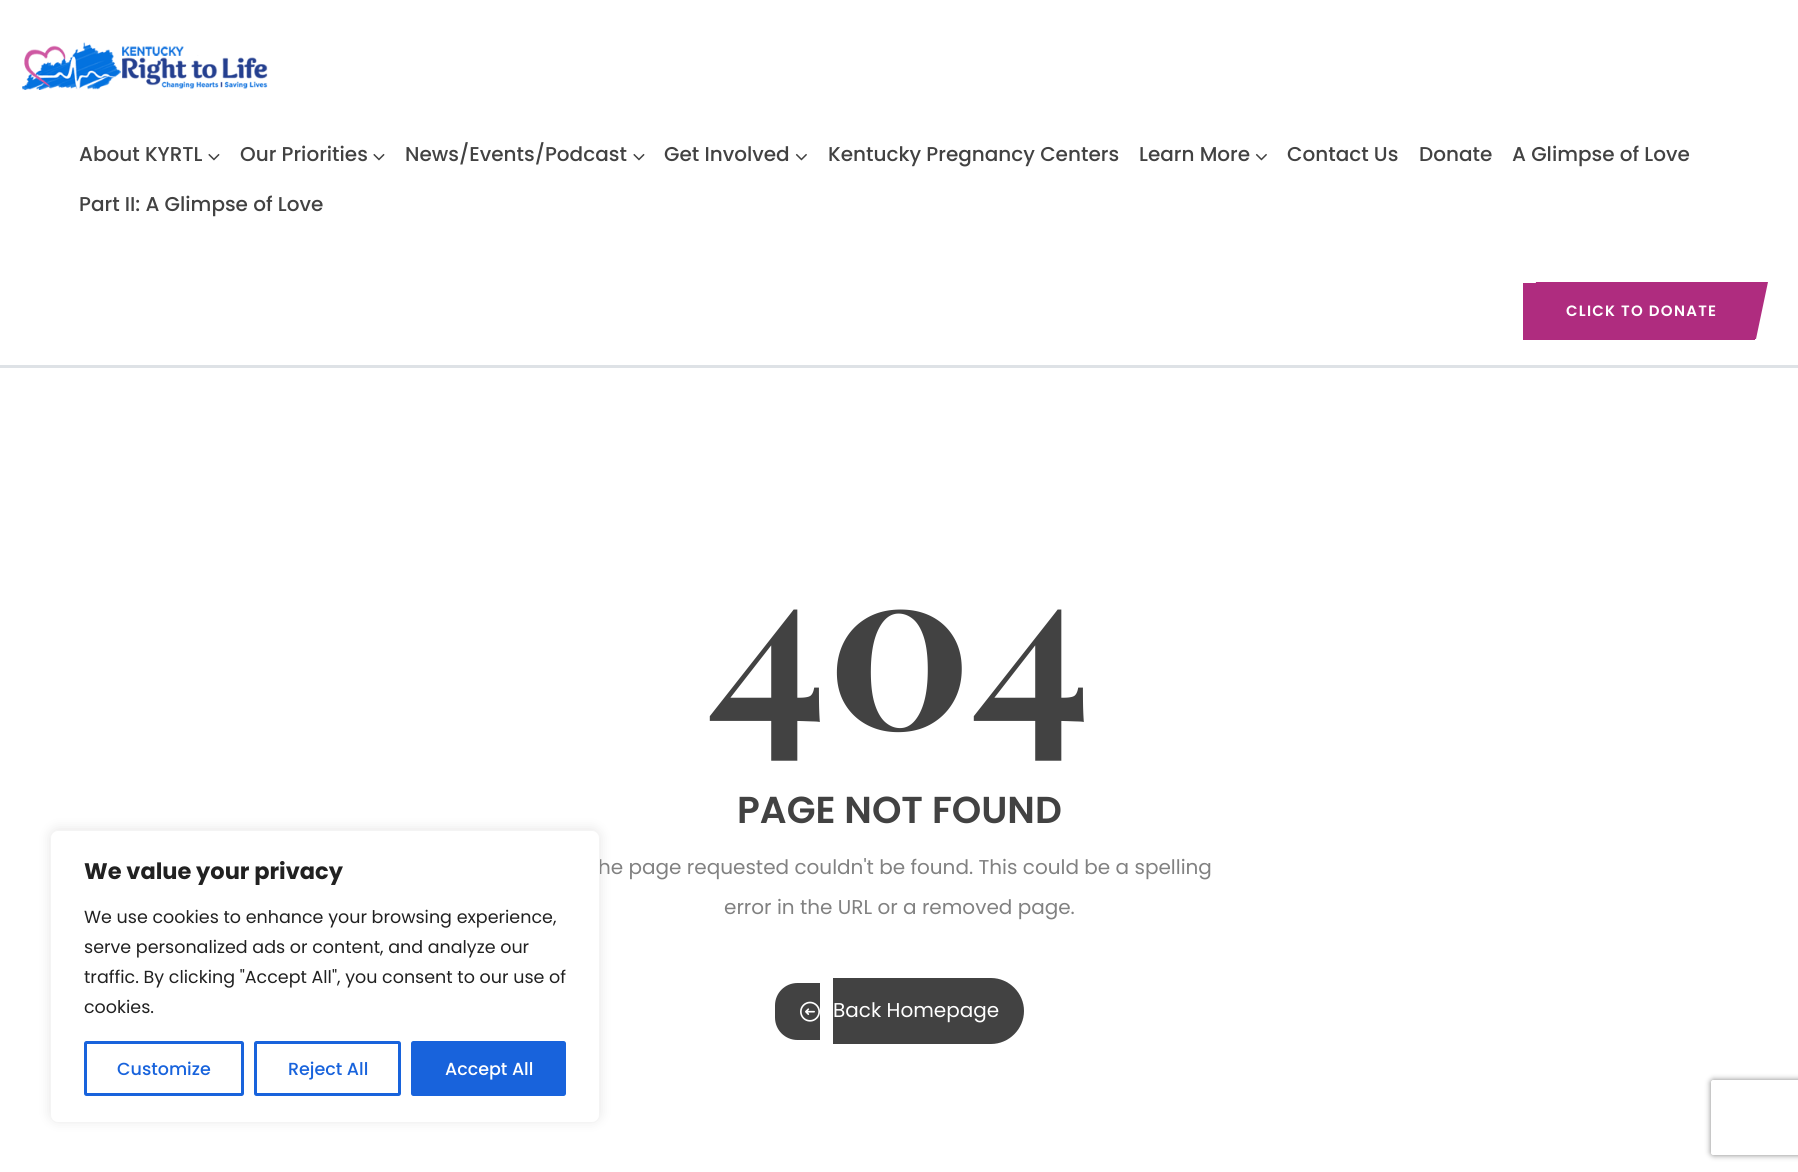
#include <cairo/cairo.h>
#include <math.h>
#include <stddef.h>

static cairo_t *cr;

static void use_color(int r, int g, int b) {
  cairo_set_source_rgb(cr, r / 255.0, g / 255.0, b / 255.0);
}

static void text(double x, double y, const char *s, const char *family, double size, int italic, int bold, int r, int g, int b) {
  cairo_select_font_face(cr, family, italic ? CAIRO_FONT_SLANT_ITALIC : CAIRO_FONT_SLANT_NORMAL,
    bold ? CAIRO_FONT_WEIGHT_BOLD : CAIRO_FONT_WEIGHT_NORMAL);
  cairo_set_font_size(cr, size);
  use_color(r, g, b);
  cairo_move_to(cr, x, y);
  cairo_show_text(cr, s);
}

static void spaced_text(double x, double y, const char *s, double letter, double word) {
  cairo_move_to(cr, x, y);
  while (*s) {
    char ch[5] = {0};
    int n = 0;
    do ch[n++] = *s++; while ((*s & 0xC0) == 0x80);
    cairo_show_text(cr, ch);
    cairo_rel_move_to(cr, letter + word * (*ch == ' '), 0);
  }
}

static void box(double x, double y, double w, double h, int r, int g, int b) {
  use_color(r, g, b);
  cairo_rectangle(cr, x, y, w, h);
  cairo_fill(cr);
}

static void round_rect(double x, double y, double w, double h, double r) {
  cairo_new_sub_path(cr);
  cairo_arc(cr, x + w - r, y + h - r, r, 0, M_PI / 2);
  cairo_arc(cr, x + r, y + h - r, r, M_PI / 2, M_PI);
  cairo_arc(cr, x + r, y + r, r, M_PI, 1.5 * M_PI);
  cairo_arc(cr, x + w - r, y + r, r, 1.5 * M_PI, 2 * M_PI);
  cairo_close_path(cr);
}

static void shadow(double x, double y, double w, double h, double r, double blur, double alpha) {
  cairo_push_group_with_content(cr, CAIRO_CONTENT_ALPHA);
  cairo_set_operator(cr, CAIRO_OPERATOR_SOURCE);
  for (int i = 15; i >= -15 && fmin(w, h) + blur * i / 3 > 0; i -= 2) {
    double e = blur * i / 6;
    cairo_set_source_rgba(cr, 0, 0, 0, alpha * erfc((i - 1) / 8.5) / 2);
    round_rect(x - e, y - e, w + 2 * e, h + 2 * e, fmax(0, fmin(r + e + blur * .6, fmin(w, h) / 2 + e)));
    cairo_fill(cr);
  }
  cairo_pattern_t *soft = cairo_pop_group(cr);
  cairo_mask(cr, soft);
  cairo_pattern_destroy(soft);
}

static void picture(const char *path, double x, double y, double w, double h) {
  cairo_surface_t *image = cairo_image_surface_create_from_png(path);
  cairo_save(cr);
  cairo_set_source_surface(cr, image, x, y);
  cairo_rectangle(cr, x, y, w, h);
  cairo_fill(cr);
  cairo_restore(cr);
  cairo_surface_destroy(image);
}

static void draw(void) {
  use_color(255, 255, 255);
  cairo_paint(cr);
  box(0, 365, 1798, 3, 222, 226, 230);
  picture("img_01.png", 22, 42, 246, 48);
  picture("img_02.png", 208, 153, 12, 8);
  picture("img_02.png", 373, 153, 12, 8);
  picture("img_02.png", 633, 153, 12, 8);
  picture("img_03.png", 795, 153, 12, 8);
  picture("img_03.png", 1255, 153, 12, 8);
  box(1523, 283, 232, 57, 175, 44, 127);
  cairo_new_path(cr);
  cairo_move_to(cr, 1536, 282);
  cairo_line_to(cr, 1768, 282);
  cairo_line_to(cr, 1756, 339);
  cairo_line_to(cr, 1524, 339);
  cairo_close_path(cr);
  cairo_fill(cr);
  use_color(66, 66, 66);
  cairo_new_path(cr);
  cairo_move_to(cr, 797.5, 983);
  cairo_line_to(cr, 820, 983);
  cairo_line_to(cr, 820, 1040);
  cairo_line_to(cr, 797.5, 1040);
  cairo_curve_to(cr, 785, 1040, 775, 1030, 775, 1017.5);
  cairo_line_to(cr, 775, 1005.5);
  cairo_curve_to(cr, 775, 993, 785, 983, 797.5, 983);
  cairo_close_path(cr);
  cairo_fill(cr);
  picture("img_04.png", 800, 1001, 20, 21);
  cairo_new_path(cr);
  cairo_move_to(cr, 833, 978);
  cairo_line_to(cr, 991, 978);
  cairo_curve_to(cr, 1009, 978, 1024, 993, 1024, 1011);
  cairo_curve_to(cr, 1024, 1029, 1009, 1044, 991, 1044);
  cairo_line_to(cr, 833, 1044);
  cairo_close_path(cr);
  cairo_fill(cr);
  use_color(172, 171, 171);
  shadow(50, 829, 550, 292, 8, 6, 0.3);
  cairo_save(cr);
  cairo_set_fill_rule(cr, CAIRO_FILL_RULE_EVEN_ODD);
  cairo_new_path(cr);
  cairo_move_to(cr, 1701, 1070);
  cairo_line_to(cr, 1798, 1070);
  cairo_line_to(cr, 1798, 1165);
  cairo_line_to(cr, 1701, 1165);
  cairo_close_path(cr);
  cairo_move_to(cr, 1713.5, 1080);
  cairo_line_to(cr, 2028.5, 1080);
  cairo_curve_to(cr, 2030, 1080, 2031, 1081, 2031, 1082.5);
  cairo_line_to(cr, 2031, 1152.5);
  cairo_curve_to(cr, 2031, 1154, 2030, 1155, 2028.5, 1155);
  cairo_line_to(cr, 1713.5, 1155);
  cairo_curve_to(cr, 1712, 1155, 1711, 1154, 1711, 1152.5);
  cairo_line_to(cr, 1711, 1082.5);
  cairo_curve_to(cr, 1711, 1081, 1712, 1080, 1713.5, 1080);
  cairo_close_path(cr);
  cairo_clip(cr);
  use_color(128, 128, 128);
  shadow(1711, 1080, 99, 75, 2.5, 3, 1);
  cairo_restore(cr);
  text(79, 161, "About KYRTL", "Poppins Medium", 20, 0, 0, 66, 66, 66);
  text(240, 161, "Our Priorities", "Poppins Medium", 20, 0, 0, 66, 66, 66);
  text(405, 161, "News/Events/Podcast", "Poppins Medium", 20, 0, 0, 66, 66, 66);
  text(664, 161, "Get Involved", "Poppins Medium", 20, 0, 0, 66, 66, 66);
  text(828, 161, "Kentucky Pregnancy Centers", "Poppins Medium", 20, 0, 0, 66, 66, 66);
  text(1139, 161, "Learn More", "Poppins Medium", 20, 0, 0, 66, 66, 66);
  text(1287, 161, "Contact Us", "Poppins Medium", 20, 0, 0, 66, 66, 66);
  text(1419, 161, "Donate", "Poppins Medium", 20, 0, 0, 66, 66, 66);
  text(1512, 161, "A Glimpse of Love", "Poppins Medium", 20, 0, 0, 66, 66, 66);
  text(79, 211, "Part II: A Glimpse of Love", "Poppins Medium", 20, 0, 0, 66, 66, 66);
  cairo_select_font_face(cr, "Poppins SemiBold", CAIRO_FONT_SLANT_NORMAL, CAIRO_FONT_WEIGHT_NORMAL);
  cairo_set_font_size(cr, 15);
  use_color(255, 255, 255);
  spaced_text(1566, 316, "CLICK TO DONATE", 1.25, 0);
  text(708, 729, "404", "Playfair Display", 225, 0, 1, 66, 66, 66);
  text(737, 823, "PAGE NOT FOUND", "Poppins SemiBold", 37.5, 0, 0, 66, 66, 66);
  text(598, 874, "he page requested couldn't be found. This could be a spelling", "Poppins", 20, 0, 0, 129, 129, 129);
  text(724, 914, "error in the URL or a removed page.", "Poppins", 20, 0, 0, 129, 129, 129);
  text(833, 1017, "Back Homepage", "Poppins", 20, 0, 0, 255, 255, 255);
  round_rect(50.5, 830.5, 549, 292, 7.5);
  cairo_fill_preserve(cr);
  use_color(244, 244, 244);
  cairo_set_line_width(cr, 1);
  cairo_stroke(cr);
  text(84, 879, "We value your privacy", "Poppins", 22.5, 0, 1, 33, 33, 33);
  text(84, 923, "We use cookies to enhance your browsing experience,", "Poppins", 17.5, 0, 0, 33, 33, 33);
  text(84, 953, "serve personalized ads or content, and analyze our", "Poppins", 17.5, 0, 0, 33, 33, 33);
  text(84, 983, "traffic. By clicking \"Accept All\", you consent to our use of", "Poppins", 17.5, 0, 0, 33, 33, 33);
  text(84, 1013, "cookies.", "Poppins", 17.5, 0, 0, 33, 33, 33);
  round_rect(85.5, 1042.5, 157, 52, 1);
  use_color(24, 99, 220);
  cairo_set_line_width(cr, 3);
  cairo_stroke(cr);
  text(117, 1075, "Customize", "Poppins Medium", 17.5, 0, 0, 24, 99, 220);
  round_rect(255.5, 1042.5, 144, 52, 1);
  cairo_stroke(cr);
  text(288, 1075, "Reject All", "Poppins Medium", 17.5, 0, 0, 24, 99, 220);
  round_rect(412.5, 1042.5, 152, 52, 1);
  cairo_fill_preserve(cr);
  cairo_stroke(cr);
  text(445, 1075, "Accept All", "Poppins Medium", 17.5, 0, 0, 255, 255, 255);
}

int main(void) {
  cairo_surface_t *surface = cairo_image_surface_create(CAIRO_FORMAT_RGB24, 1798, 1172);
  cr = cairo_create(surface);
  cairo_font_options_t *options = cairo_font_options_create();
  cairo_font_options_set_hint_metrics(options, CAIRO_HINT_METRICS_OFF);
  cairo_font_options_set_hint_style(options, CAIRO_HINT_STYLE_NONE);
  cairo_set_font_options(cr, options);
  cairo_set_miter_limit(cr, 4);
  draw();
  cairo_surface_write_to_png(surface, "out.png");
  cairo_font_options_destroy(options);
  cairo_destroy(cr);
  cairo_surface_destroy(surface);
  return 0;
}
